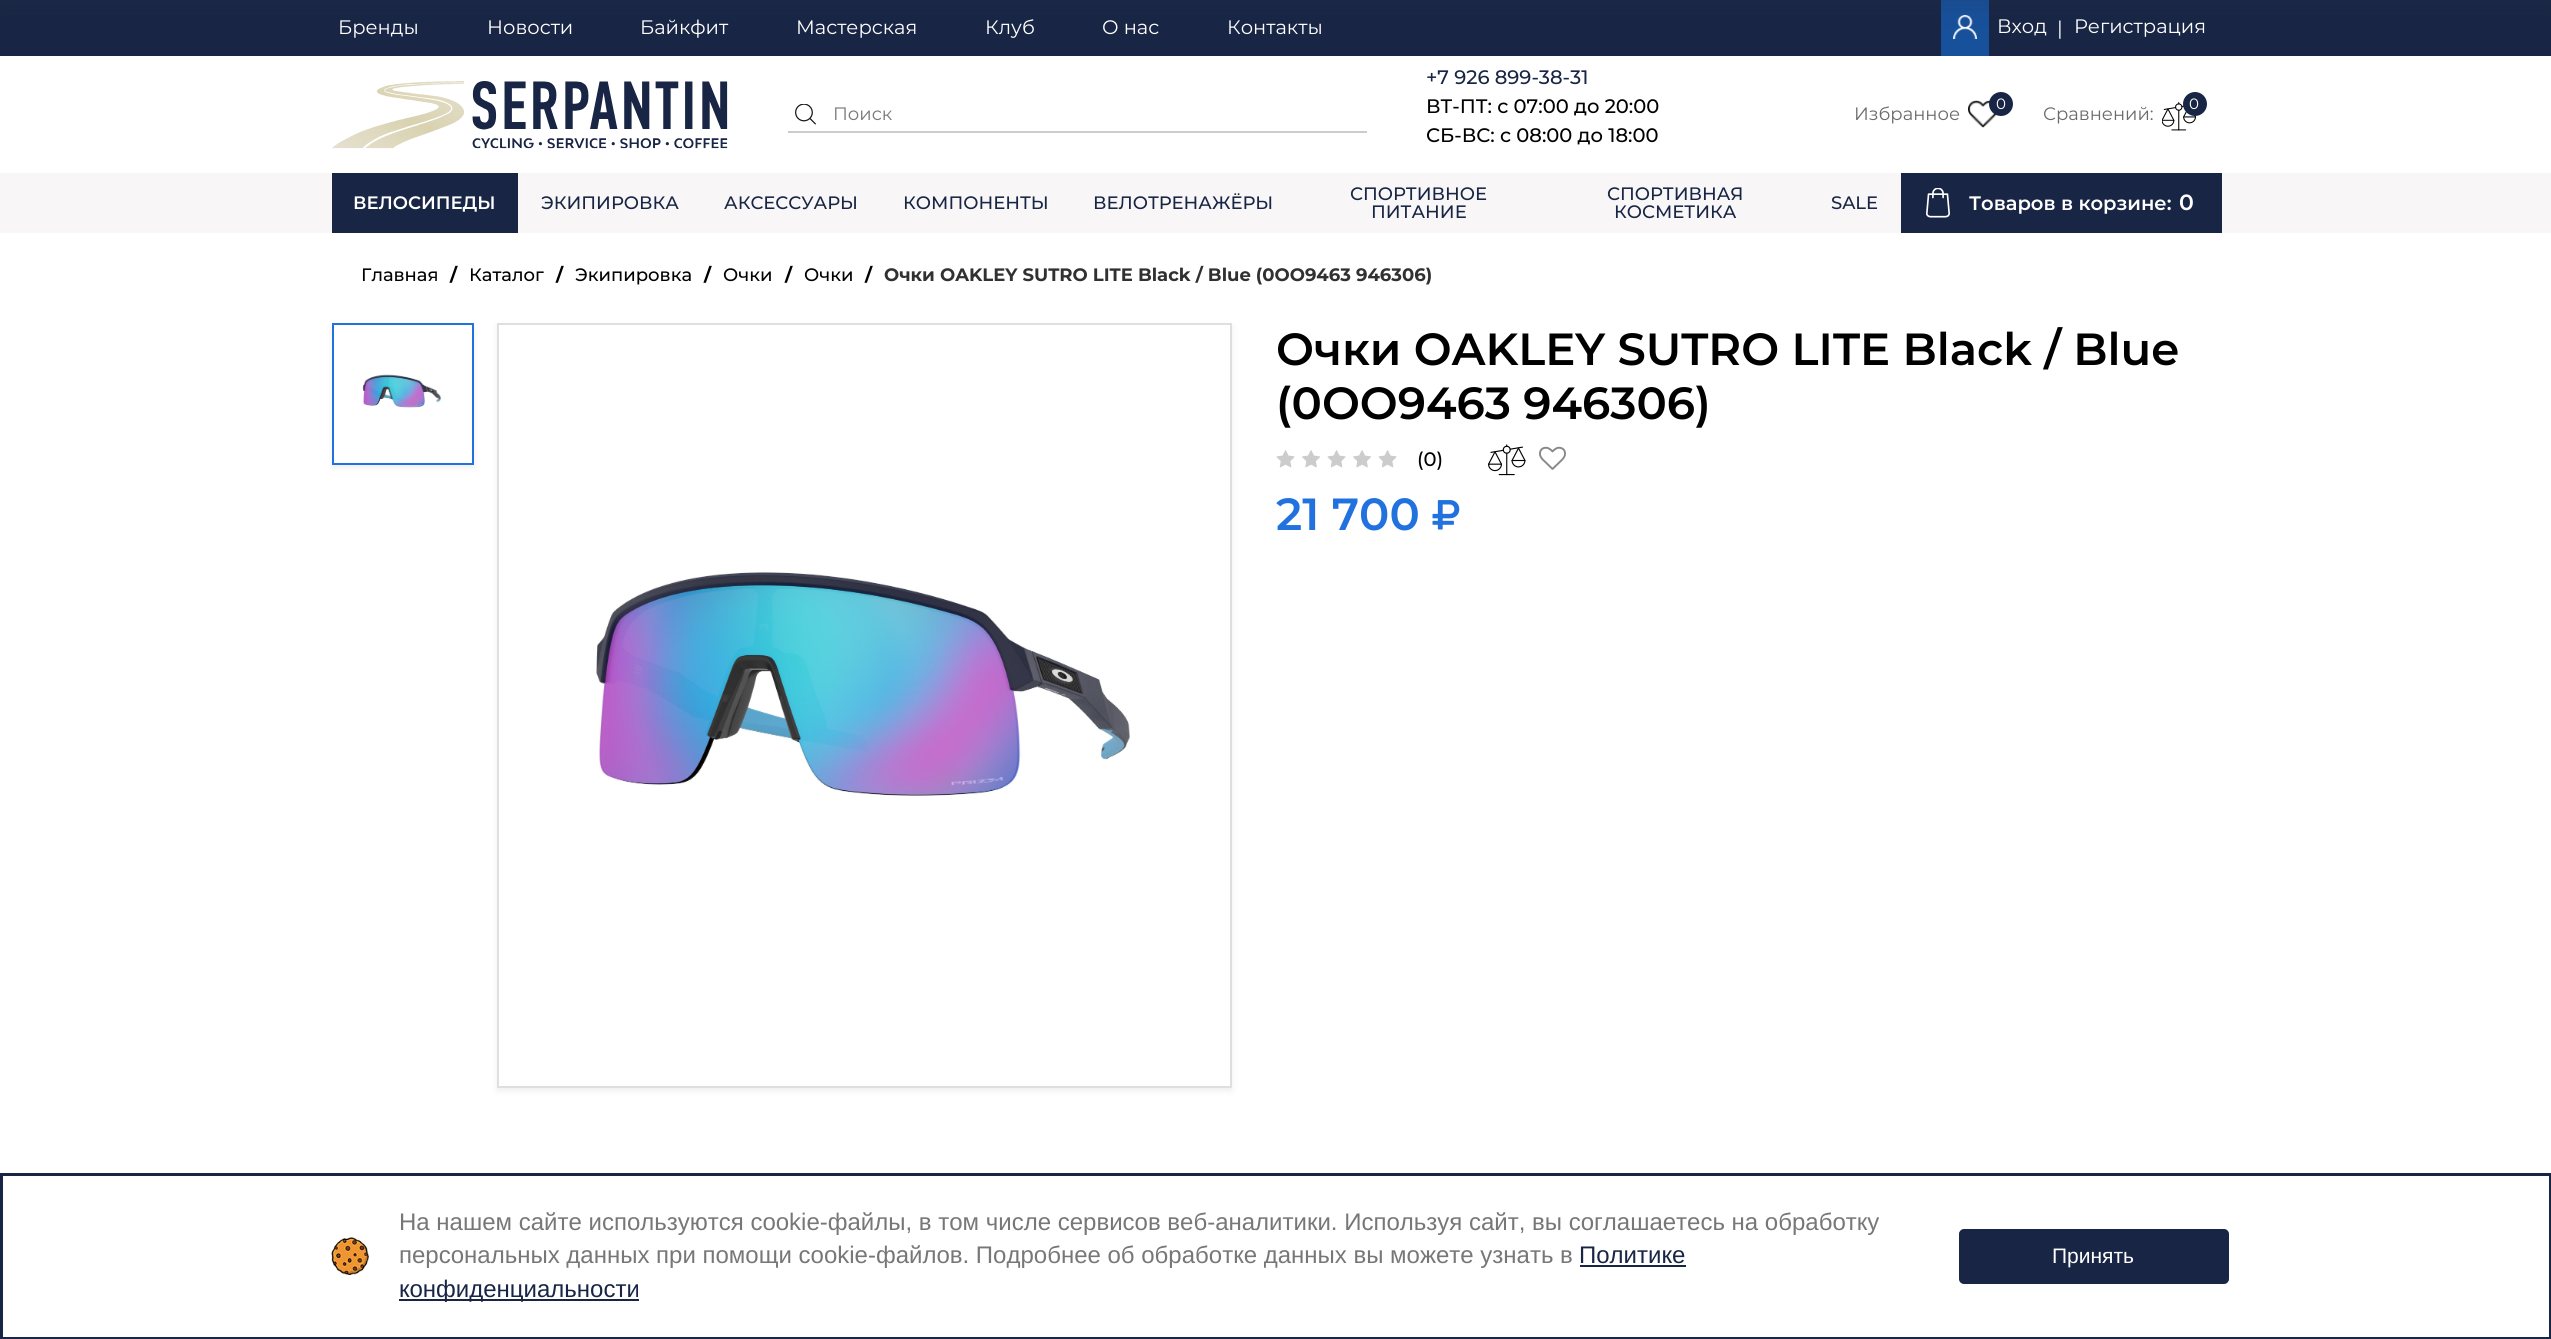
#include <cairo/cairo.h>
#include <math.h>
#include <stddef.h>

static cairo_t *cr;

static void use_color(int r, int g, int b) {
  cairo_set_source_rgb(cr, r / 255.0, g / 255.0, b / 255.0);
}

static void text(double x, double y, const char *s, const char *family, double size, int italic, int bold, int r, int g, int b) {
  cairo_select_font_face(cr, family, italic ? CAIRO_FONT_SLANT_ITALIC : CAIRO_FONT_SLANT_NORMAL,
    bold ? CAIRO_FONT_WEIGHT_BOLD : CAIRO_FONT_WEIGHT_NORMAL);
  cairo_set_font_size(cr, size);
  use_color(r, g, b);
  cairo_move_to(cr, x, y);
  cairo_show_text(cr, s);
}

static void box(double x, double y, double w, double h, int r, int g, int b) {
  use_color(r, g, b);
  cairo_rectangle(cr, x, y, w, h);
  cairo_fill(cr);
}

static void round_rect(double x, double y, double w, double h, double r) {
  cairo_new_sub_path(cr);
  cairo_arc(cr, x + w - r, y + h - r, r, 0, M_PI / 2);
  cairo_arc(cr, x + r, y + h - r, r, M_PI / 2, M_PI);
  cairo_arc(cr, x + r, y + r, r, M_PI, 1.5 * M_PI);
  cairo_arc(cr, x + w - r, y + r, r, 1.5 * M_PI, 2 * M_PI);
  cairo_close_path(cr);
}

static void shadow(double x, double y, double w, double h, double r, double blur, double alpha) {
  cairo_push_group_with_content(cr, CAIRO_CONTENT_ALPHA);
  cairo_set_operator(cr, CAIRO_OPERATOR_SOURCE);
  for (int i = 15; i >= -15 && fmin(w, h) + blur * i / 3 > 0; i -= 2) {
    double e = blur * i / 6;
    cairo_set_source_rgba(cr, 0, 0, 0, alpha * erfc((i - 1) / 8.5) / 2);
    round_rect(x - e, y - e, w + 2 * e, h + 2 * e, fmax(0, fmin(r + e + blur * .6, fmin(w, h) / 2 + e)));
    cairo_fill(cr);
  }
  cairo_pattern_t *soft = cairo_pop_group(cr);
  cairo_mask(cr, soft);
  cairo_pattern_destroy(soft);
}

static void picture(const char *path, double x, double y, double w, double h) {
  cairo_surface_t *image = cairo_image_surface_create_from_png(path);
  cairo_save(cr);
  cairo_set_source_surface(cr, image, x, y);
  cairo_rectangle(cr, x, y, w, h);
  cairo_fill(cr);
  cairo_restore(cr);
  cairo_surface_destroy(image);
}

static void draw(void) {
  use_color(255, 255, 255);
  cairo_paint(cr);
  box(0, 0, 2551, 56, 24, 37, 68);
  box(1941, 0, 48, 56, 23, 80, 155);
  picture("img_01.png", 1953, 15, 24, 24);
  picture("img_02.png", 332, 81, 396, 68);
  picture("img_03.png", 795, 104, 21, 21);
  box(788, 131, 579, 2, 204, 204, 204);
  picture("img_04.png", 1968, 100, 29, 28);
  use_color(24, 37, 68);
  cairo_arc(cr, 2001, 104, 12, 0, 2 * M_PI);
  cairo_fill(cr);
  picture("img_05.png", 2162, 102, 34, 29);
  cairo_arc(cr, 2195, 104, 12, 0, 2 * M_PI);
  cairo_fill(cr);
  box(0, 173, 2551, 60, 248, 246, 246);
  box(332, 173, 186, 60, 24, 37, 68);
  box(1901, 173, 321, 60, 24, 37, 68);
  picture("img_06.png", 1926, 188, 24, 30);
  use_color(32, 54, 74);
  shadow(0, -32, 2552, 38, 0, 10.5, 0.23);
  cairo_save(cr);
  cairo_set_fill_rule(cr, CAIRO_FILL_RULE_EVEN_ODD);
  cairo_new_path(cr);
  cairo_move_to(cr, 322, 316);
  cairo_line_to(cr, 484, 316);
  cairo_line_to(cr, 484, 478);
  cairo_line_to(cr, 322, 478);
  cairo_close_path(cr);
  cairo_move_to(cr, 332, 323);
  cairo_line_to(cr, 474, 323);
  cairo_line_to(cr, 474, 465);
  cairo_line_to(cr, 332, 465);
  cairo_close_path(cr);
  cairo_clip(cr);
  use_color(222, 222, 222);
  shadow(332, 326, 142, 142, 0, 3, 0.5);
  cairo_restore(cr);
  cairo_rectangle(cr, 333, 324, 140, 140);
  use_color(33, 114, 222);
  cairo_stroke(cr);
  picture("img_07.png", 362, 374, 79, 34);
  use_color(222, 222, 222);
  shadow(497, 326, 735, 765, 0, 3, 0.5);
  use_color(255, 255, 255);
  cairo_rectangle(cr, 498, 324, 733, 763);
  cairo_fill_preserve(cr);
  use_color(223, 223, 223);
  cairo_stroke(cr);
  picture("img_08.png", 596, 572, 534, 224);
  picture("img_09.png", 1276, 450, 19, 18);
  picture("img_10.png", 1302, 450, 18, 18);
  picture("img_09.png", 1327, 450, 19, 18);
  picture("img_10.png", 1353, 450, 18, 18);
  picture("img_09.png", 1378, 450, 19, 18);
  picture("img_11.png", 1488, 444, 38, 32);
  picture("img_12.png", 1539, 446, 27, 24);
  picture("img_13.png", 1432, 500, 28, 30);
  cairo_rectangle(cr, 1.5, 1174.5, 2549, 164);
  use_color(24, 37, 68);
  cairo_set_line_width(cr, 3);
  cairo_stroke(cr);
  picture("img_14.png", 331, 1237, 38, 38);
  box(1580, 1265, 106, 2, 24, 37, 68);
  box(399, 1299, 240, 2, 24, 37, 68);
  round_rect(1960, 1230, 268, 53, 4);
  cairo_fill_preserve(cr);
  cairo_set_line_width(cr, 2);
  cairo_stroke(cr);
  text(338, 34, "Бренды", "Montserrat", 19.5, 0, 0, 255, 255, 255);
  text(487, 34, "Новости", "Montserrat", 19.5, 0, 0, 255, 255, 255);
  text(640, 34, "Байкфит", "Montserrat", 19.5, 0, 0, 255, 255, 255);
  text(796, 34, "Мастерская", "Montserrat", 19.5, 0, 0, 255, 255, 255);
  text(985, 34, "Клуб", "Montserrat", 19.5, 0, 0, 255, 255, 255);
  text(1102, 34, "О нас", "Montserrat", 19.5, 0, 0, 255, 255, 255);
  text(1227, 34, "Контакты", "Montserrat", 19.5, 0, 0, 255, 255, 255);
  text(1997, 33, "Вход", "Montserrat", 19.5, 0, 0, 255, 255, 255);
  text(2057, 35, "|", "Montserrat", 19.5, 0, 0, 255, 255, 255);
  text(2074, 33, "Регистрация", "Montserrat", 19.5, 0, 0, 255, 255, 255);
  text(833, 120, "Поиск", "Montserrat", 18, 0, 0, 119, 119, 119);
  text(1426, 84, "+7 926 899-38-31", "Montserrat Medium", 19.5, 0, 0, 24, 37, 68);
  text(1426, 113, "ВТ-ПТ: с 07:00 до 20:00", "Montserrat Medium", 19.5, 0, 0, 0, 0, 0);
  text(1426, 142, "СБ-ВС: с 08:00 до 18:00", "Montserrat Medium", 19.5, 0, 0, 0, 0, 0);
  text(1996, 109, "0", "Montserrat", 15, 0, 0, 255, 255, 255);
  text(1854, 120, "Избранное", "Montserrat", 18, 0, 0, 106, 106, 106);
  text(2189, 109, "0", "Montserrat", 15, 0, 0, 255, 255, 255);
  text(2043, 120, "Сравнений:", "Montserrat", 18, 0, 0, 106, 106, 106);
  text(353, 209, "ВЕЛОСИПЕДЫ", "Montserrat SemiBold", 18, 0, 0, 255, 255, 255);
  text(541, 209, "ЭКИПИРОВКА", "Montserrat Medium", 18, 0, 0, 24, 37, 68);
  text(724, 209, "АКСЕССУАРЫ", "Montserrat Medium", 18, 0, 0, 24, 37, 68);
  text(903, 209, "КОМПОНЕНТЫ", "Montserrat Medium", 18, 0, 0, 24, 37, 68);
  text(1093, 209, "ВЕЛОТРЕНАЖЁРЫ", "Montserrat Medium", 18, 0, 0, 24, 37, 68);
  text(1350, 200, "СПОРТИВНОЕ", "Montserrat Medium", 18, 0, 0, 24, 37, 68);
  text(1371, 218, "ПИТАНИЕ", "Montserrat Medium", 18, 0, 0, 24, 37, 68);
  text(1607, 200, "СПОРТИВНАЯ", "Montserrat Medium", 18, 0, 0, 24, 37, 68);
  text(1614, 218, "КОСМЕТИКА", "Montserrat Medium", 18, 0, 0, 24, 37, 68);
  text(1831, 209, "SALE", "Montserrat Medium", 18, 0, 0, 24, 37, 68);
  text(1969, 210, "Товаров в корзине:", "Montserrat SemiBold", 19.5, 0, 0, 255, 255, 255);
  text(2179, 210, "0", "Montserrat SemiBold", 22, 0, 0, 255, 255, 255);
  text(361, 281, "Главная", "Montserrat Medium", 18, 0, 0, 0, 0, 0);
  text(450, 281, "/", "Montserrat", 18, 0, 1, 0, 0, 0);
  text(469, 281, "Каталог", "Montserrat Medium", 18, 0, 0, 0, 0, 0);
  text(556, 281, "/", "Montserrat", 18, 0, 1, 0, 0, 0);
  text(575, 281, "Экипировка", "Montserrat Medium", 18, 0, 0, 0, 0, 0);
  text(704, 281, "/", "Montserrat", 18, 0, 1, 0, 0, 0);
  text(723, 281, "Очки", "Montserrat Medium", 18, 0, 0, 0, 0, 0);
  text(785, 281, "/", "Montserrat", 18, 0, 1, 0, 0, 0);
  text(804, 281, "Очки", "Montserrat Medium", 18, 0, 0, 0, 0, 0);
  text(865, 281, "/", "Montserrat", 18, 0, 1, 0, 0, 0);
  text(884, 281, "Очки OAKLEY SUTRO LITE Black / Blue (0OO9463 946306)", "Montserrat", 18, 0, 1, 49, 49, 49);
  text(1276, 365, "Очки OAKLEY SUTRO LITE Black / Blue", "Montserrat SemiBold", 45, 0, 0, 0, 0, 0);
  text(1276, 419, "(0OO9463 946306)", "Montserrat SemiBold", 45, 0, 0, 0, 0, 0);
  text(1417, 466, "(0)", "Montserrat Medium", 19.5, 0, 0, 0, 0, 0);
  text(1276, 530, "21 700", "Montserrat SemiBold", 45, 0, 0, 33, 114, 222);
  text(399, 1230, "На нашем сайте используются cookie-файлы, в том числе сервисов веб-аналитики. Используя сайт, вы соглашаетесь на обработку", "Liberation Sans", 24, 0, 0, 119, 119, 119);
  text(399, 1263, "персональных данных при помощи cookie-файлов. Подробнее об обработке данных вы можете узнать в", "Liberation Sans", 24, 0, 0, 119, 119, 119);
  text(1579, 1263, "Политике", "Liberation Sans", 24, 0, 0, 24, 37, 68);
  text(399, 1297, "конфиденциальности", "Liberation Sans", 24, 0, 0, 24, 37, 68);
  text(2052, 1263, "Принять", "Liberation Sans", 21, 0, 0, 255, 255, 255);
}

int main(void) {
  cairo_surface_t *surface = cairo_image_surface_create(CAIRO_FORMAT_RGB24, 2551, 1339);
  cr = cairo_create(surface);
  cairo_font_options_t *options = cairo_font_options_create();
  cairo_font_options_set_hint_metrics(options, CAIRO_HINT_METRICS_OFF);
  cairo_font_options_set_hint_style(options, CAIRO_HINT_STYLE_NONE);
  cairo_set_font_options(cr, options);
  cairo_set_miter_limit(cr, 4);
  draw();
  cairo_surface_write_to_png(surface, "out.png");
  cairo_font_options_destroy(options);
  cairo_destroy(cr);
  cairo_surface_destroy(surface);
  return 0;
}
